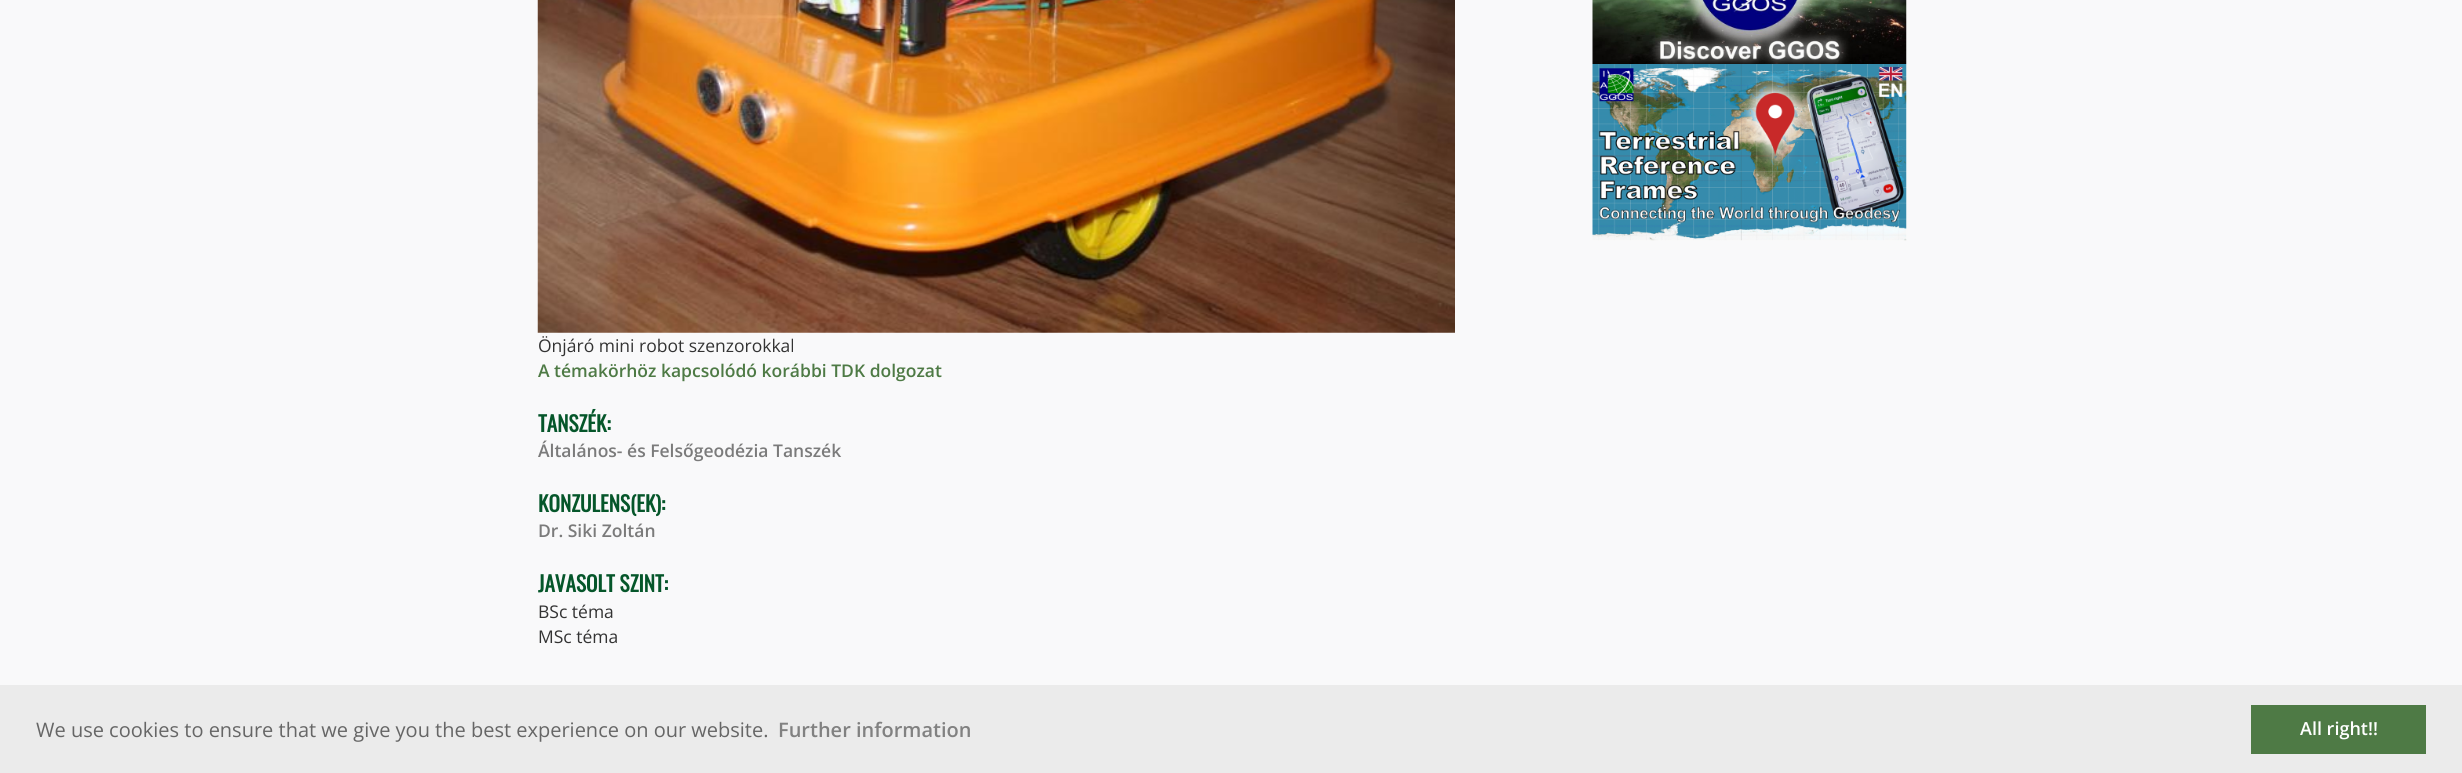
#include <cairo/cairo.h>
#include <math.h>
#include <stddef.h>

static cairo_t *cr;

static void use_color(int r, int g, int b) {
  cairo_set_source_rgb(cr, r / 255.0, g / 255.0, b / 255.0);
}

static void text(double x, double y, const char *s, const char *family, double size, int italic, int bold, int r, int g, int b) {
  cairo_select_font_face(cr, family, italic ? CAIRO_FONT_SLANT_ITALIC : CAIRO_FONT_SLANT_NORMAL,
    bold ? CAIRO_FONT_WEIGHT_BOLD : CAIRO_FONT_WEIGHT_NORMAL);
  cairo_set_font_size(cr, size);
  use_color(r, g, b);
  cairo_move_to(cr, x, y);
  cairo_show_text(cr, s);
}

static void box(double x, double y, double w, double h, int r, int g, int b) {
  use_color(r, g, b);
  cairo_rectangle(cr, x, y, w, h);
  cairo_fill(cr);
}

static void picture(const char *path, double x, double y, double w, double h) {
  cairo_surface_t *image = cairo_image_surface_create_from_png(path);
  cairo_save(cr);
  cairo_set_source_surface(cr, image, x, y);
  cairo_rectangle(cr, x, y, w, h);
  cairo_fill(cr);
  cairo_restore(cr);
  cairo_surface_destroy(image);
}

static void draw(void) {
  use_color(249, 249, 250);
  cairo_paint(cr);
  picture("img_01.png", 1592, 0, 315, 64);
  picture("img_02.png", 1592, 64, 315, 177);
  picture("img_03.png", 537, 0, 918, 333);
  box(0, 685, 2462, 88, 235, 235, 235);
  box(2251, 705, 175, 49, 78, 122, 69);
  text(538, 352, "Önjáró mini robot szenzorokkal", "Open Sans", 17.5, 0, 0, 51, 51, 51);
  text(538, 377, "A témakörhöz kapcsolódó korábbi TDK dolgozat", "Open Sans SemiBold", 17.5, 0, 0, 78, 122, 69);
  text(538, 432, "TANSZÉK:", "Oswald", 21.25, 0, 1, 5, 86, 42);
  text(538, 457, "Általános- és Felsőgeodézia Tanszék", "Open Sans SemiBold", 17.5, 0, 0, 123, 123, 123);
  text(538, 512, "KONZULENS(EK):", "Oswald", 21.25, 0, 1, 5, 86, 42);
  text(538, 537, "Dr. Siki Zoltán", "Open Sans SemiBold", 17.5, 0, 0, 123, 123, 123);
  text(538, 592, "JAVASOLT SZINT:", "Oswald", 21.25, 0, 1, 5, 86, 42);
  text(538, 618, "BSc téma", "Open Sans", 17.5, 0, 0, 51, 51, 51);
  text(538, 643, "MSc téma", "Open Sans", 17.5, 0, 0, 51, 51, 51);
  text(36, 737, "We use cookies to ensure that we give you the best experience on our website.", "Open Sans", 20, 0, 0, 102, 102, 102);
  text(778, 737, "Further information", "Open Sans SemiBold", 20, 0, 0, 129, 129, 129);
  text(2300, 735, "All right!!", "Open Sans SemiBold", 18, 0, 0, 255, 255, 255);
}

int main(void) {
  cairo_surface_t *surface = cairo_image_surface_create(CAIRO_FORMAT_RGB24, 2462, 773);
  cr = cairo_create(surface);
  cairo_font_options_t *options = cairo_font_options_create();
  cairo_font_options_set_hint_metrics(options, CAIRO_HINT_METRICS_OFF);
  cairo_font_options_set_hint_style(options, CAIRO_HINT_STYLE_NONE);
  cairo_set_font_options(cr, options);
  cairo_set_miter_limit(cr, 4);
  draw();
  cairo_surface_write_to_png(surface, "out.png");
  cairo_font_options_destroy(options);
  cairo_destroy(cr);
  cairo_surface_destroy(surface);
  return 0;
}
